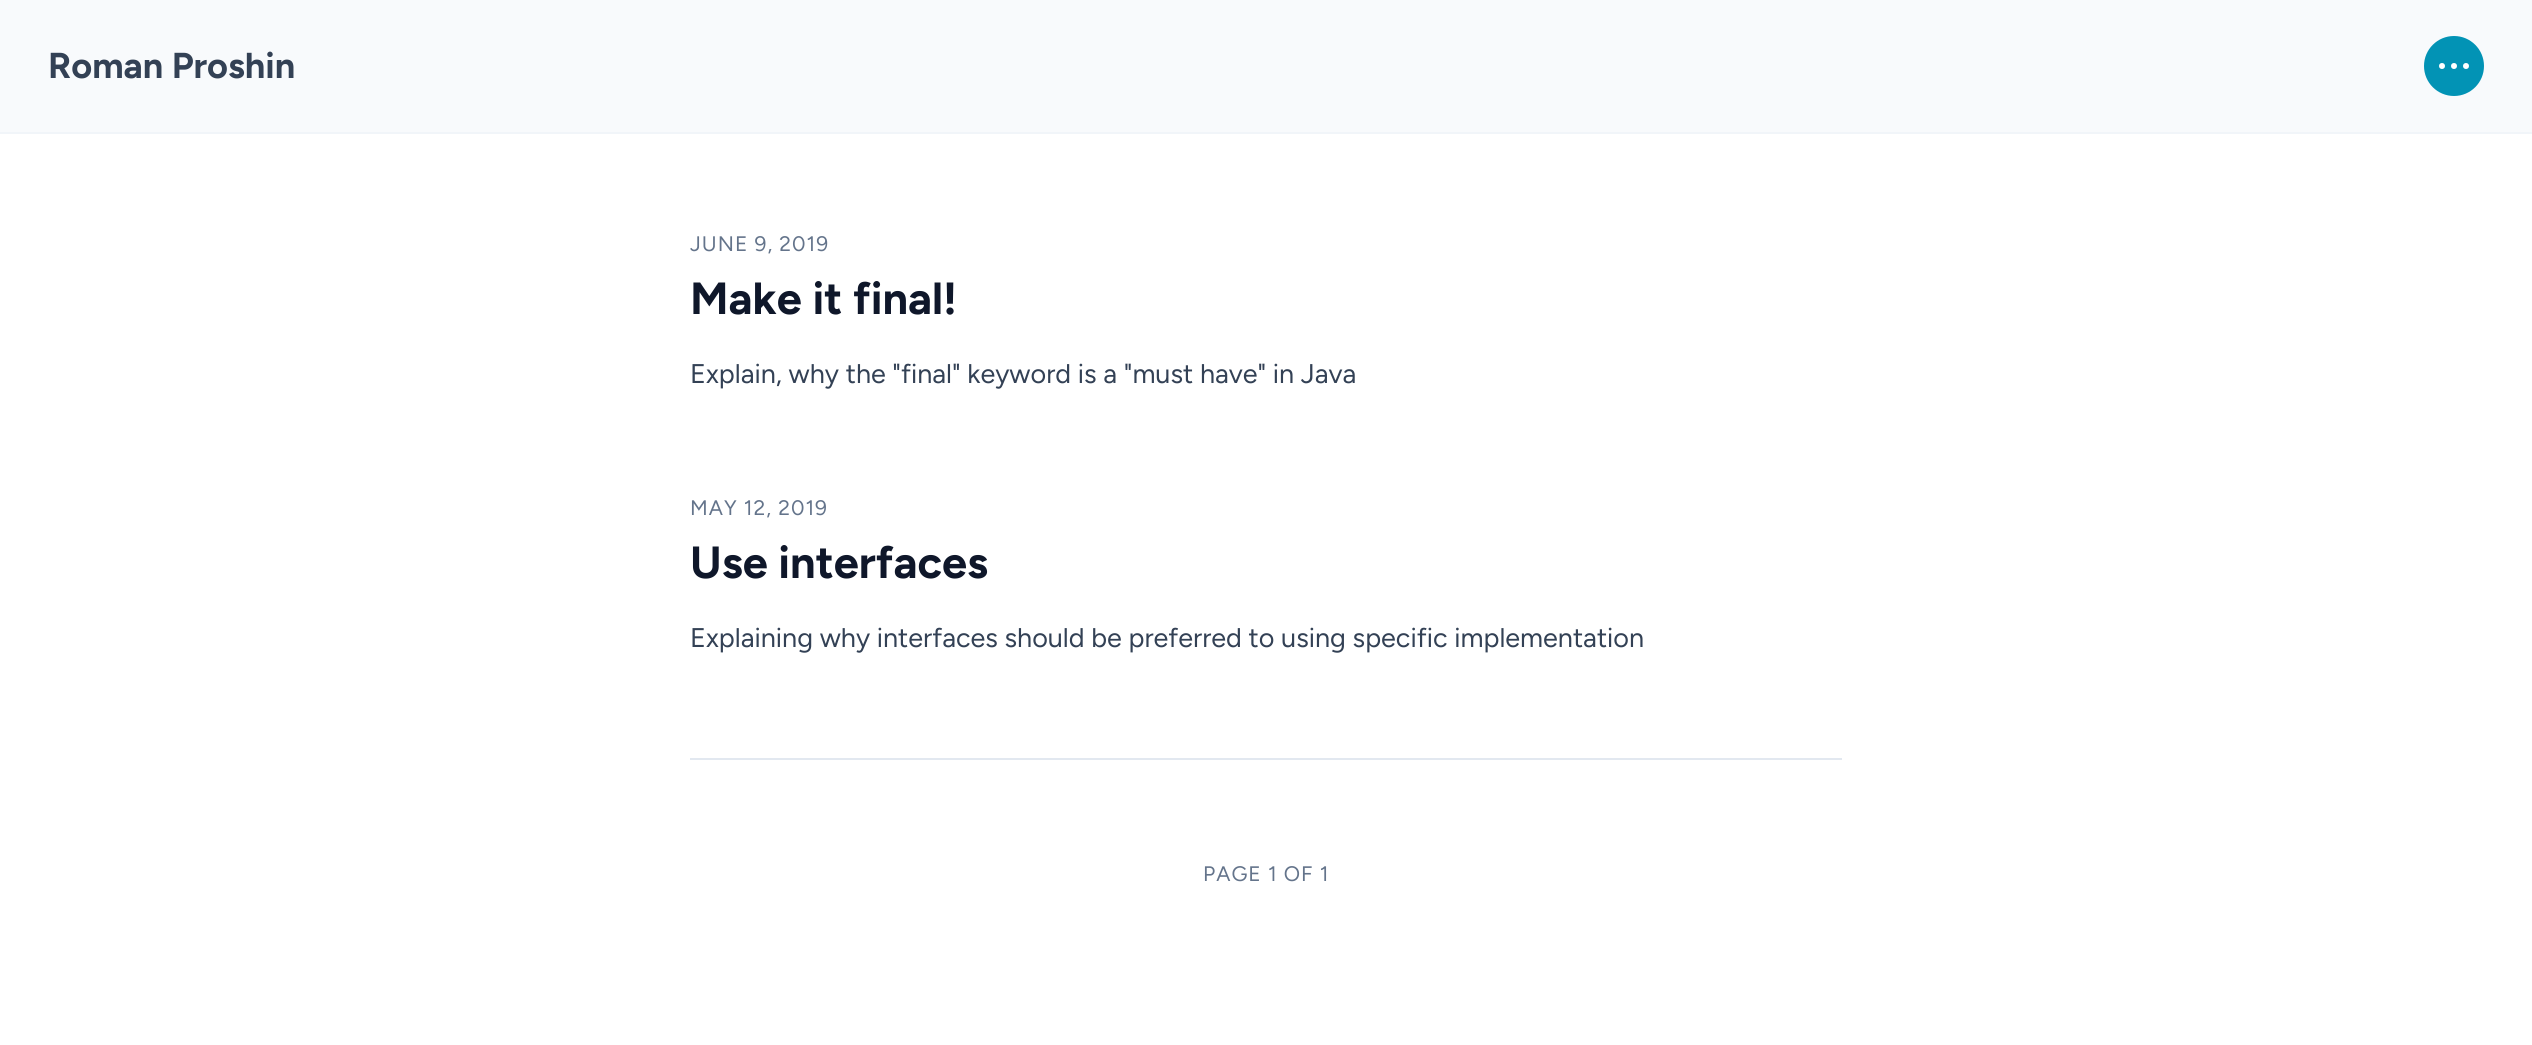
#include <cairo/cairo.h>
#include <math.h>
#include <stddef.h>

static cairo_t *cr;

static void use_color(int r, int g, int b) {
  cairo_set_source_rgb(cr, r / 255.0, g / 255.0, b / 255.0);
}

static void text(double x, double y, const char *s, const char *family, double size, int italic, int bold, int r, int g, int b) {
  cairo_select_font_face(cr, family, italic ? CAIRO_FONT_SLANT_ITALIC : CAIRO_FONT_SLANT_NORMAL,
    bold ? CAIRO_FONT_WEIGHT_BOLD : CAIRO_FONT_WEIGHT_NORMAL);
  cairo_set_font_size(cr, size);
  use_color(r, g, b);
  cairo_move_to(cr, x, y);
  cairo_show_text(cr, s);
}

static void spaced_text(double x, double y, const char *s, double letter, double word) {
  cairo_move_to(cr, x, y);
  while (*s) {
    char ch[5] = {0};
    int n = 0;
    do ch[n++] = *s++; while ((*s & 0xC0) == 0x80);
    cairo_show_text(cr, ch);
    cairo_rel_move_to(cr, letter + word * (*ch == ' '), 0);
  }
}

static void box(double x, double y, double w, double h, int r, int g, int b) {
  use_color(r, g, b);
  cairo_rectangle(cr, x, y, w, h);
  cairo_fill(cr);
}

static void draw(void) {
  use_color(255, 255, 255);
  cairo_paint(cr);
  box(0, 0, 2532, 132, 248, 250, 252);
  box(0, 132, 2532, 2, 241, 245, 249);
  use_color(2, 147, 181);
  cairo_arc(cr, 2454, 66, 30, 0, 2 * M_PI);
  cairo_fill(cr);
  use_color(255, 255, 255);
  cairo_arc(cr, 2454, 66, 3, 0, 2 * M_PI);
  cairo_fill(cr);
  cairo_arc(cr, 2442, 66, 3, 0, 2 * M_PI);
  cairo_fill(cr);
  cairo_arc(cr, 2466, 66, 3, 0, 2 * M_PI);
  cairo_fill(cr);
  box(690, 758, 1152, 2, 226, 232, 240);
  text(48, 78, "Roman Proshin", "Figtree", 36, 0, 1, 51, 65, 85);
  cairo_select_font_face(cr, "Figtree", CAIRO_FONT_SLANT_NORMAL, CAIRO_FONT_WEIGHT_NORMAL);
  cairo_set_font_size(cr, 21);
  use_color(100, 116, 139);
  spaced_text(690, 251, "JUNE 9, 2019", 1, 0);
  text(690, 314, "Make it final!", "Figtree", 45, 0, 1, 15, 23, 42);
  text(690, 383, "Explain, why the \"final\" keyword is a \"must have\" in Java", "Figtree", 27, 0, 0, 51, 65, 85);
  cairo_set_font_size(cr, 21);
  use_color(100, 116, 139);
  spaced_text(690, 515, "MAY 12, 2019", 1, 0);
  text(690, 578, "Use interfaces", "Figtree", 45, 0, 1, 15, 23, 42);
  text(690, 647, "Explaining why interfaces should be preferred to using specific implementation", "Figtree", 27, 0, 0, 51, 65, 85);
  cairo_set_font_size(cr, 21);
  use_color(100, 116, 139);
  spaced_text(1203, 881, "PAGE 1 OF 1", 1, 0);
}

int main(void) {
  cairo_surface_t *surface = cairo_image_surface_create(CAIRO_FORMAT_RGB24, 2532, 1045);
  cr = cairo_create(surface);
  cairo_font_options_t *options = cairo_font_options_create();
  cairo_font_options_set_hint_metrics(options, CAIRO_HINT_METRICS_OFF);
  cairo_font_options_set_hint_style(options, CAIRO_HINT_STYLE_NONE);
  cairo_set_font_options(cr, options);
  cairo_set_miter_limit(cr, 4);
  draw();
  cairo_surface_write_to_png(surface, "out.png");
  cairo_font_options_destroy(options);
  cairo_destroy(cr);
  cairo_surface_destroy(surface);
  return 0;
}
